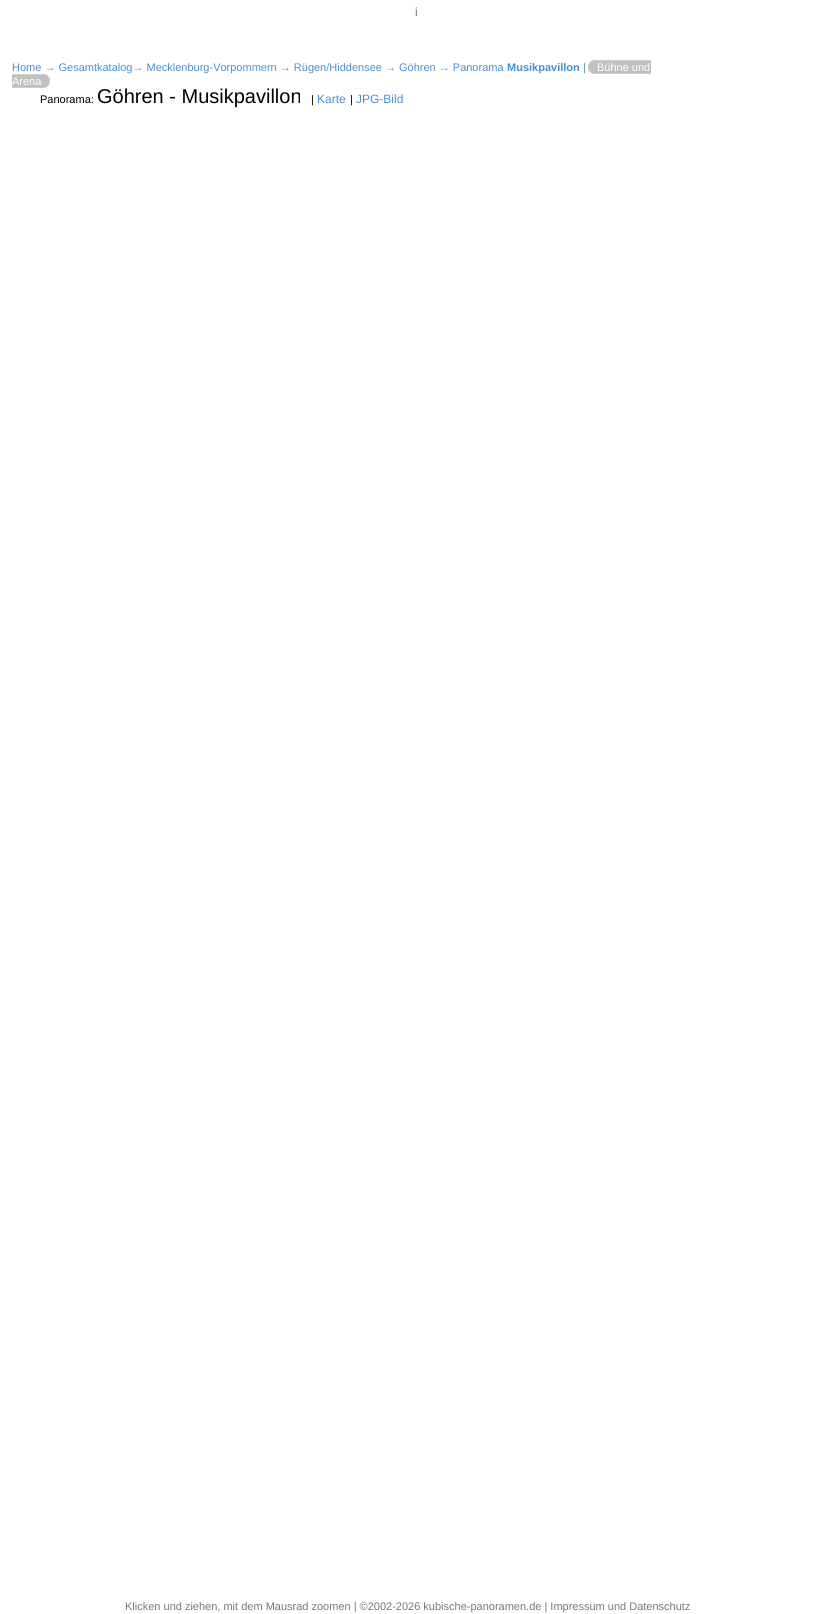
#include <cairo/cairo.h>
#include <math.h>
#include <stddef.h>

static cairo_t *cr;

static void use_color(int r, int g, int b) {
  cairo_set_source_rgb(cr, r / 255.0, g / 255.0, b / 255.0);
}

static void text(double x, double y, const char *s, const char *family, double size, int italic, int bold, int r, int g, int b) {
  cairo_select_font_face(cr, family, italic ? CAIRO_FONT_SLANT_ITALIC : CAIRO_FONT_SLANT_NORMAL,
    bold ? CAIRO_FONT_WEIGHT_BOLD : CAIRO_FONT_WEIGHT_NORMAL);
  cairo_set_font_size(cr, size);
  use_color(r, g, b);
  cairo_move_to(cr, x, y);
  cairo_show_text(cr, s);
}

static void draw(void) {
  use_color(255, 255, 255);
  cairo_paint(cr);
  use_color(192, 192, 192);
  cairo_new_path(cr);
  cairo_move_to(cr, 595, 60);
  cairo_line_to(cr, 651, 60);
  cairo_line_to(cr, 651, 74);
  cairo_line_to(cr, 595, 74);
  cairo_curve_to(cr, 591, 74, 588, 71, 588, 67);
  cairo_curve_to(cr, 588, 63, 591, 60, 595, 60);
  cairo_close_path(cr);
  cairo_fill(cr);
  use_color(204, 204, 204);
  cairo_set_fill_rule(cr, CAIRO_FILL_RULE_EVEN_ODD);
  cairo_new_path(cr);
  cairo_move_to(cr, 595, 60);
  cairo_line_to(cr, 651, 60);
  cairo_line_to(cr, 651, 74);
  cairo_line_to(cr, 594, 74);
  cairo_curve_to(cr, 586, 72, 587, 60, 595, 60);
  cairo_close_path(cr);
  cairo_move_to(cr, 595, 61);
  cairo_line_to(cr, 651, 61);
  cairo_line_to(cr, 651, 73);
  cairo_line_to(cr, 595, 73);
  cairo_curve_to(cr, 592, 73, 589, 70, 589, 67);
  cairo_curve_to(cr, 589, 64, 592, 61, 595, 61);
  cairo_close_path(cr);
  cairo_fill(cr);
  use_color(192, 192, 192);
  cairo_new_path(cr);
  cairo_move_to(cr, 12, 74);
  cairo_line_to(cr, 43, 74);
  cairo_curve_to(cr, 47, 74, 50, 77, 50, 81);
  cairo_curve_to(cr, 50, 85, 47, 88, 43, 88);
  cairo_line_to(cr, 12, 88);
  cairo_close_path(cr);
  cairo_fill(cr);
  use_color(204, 204, 204);
  cairo_new_path(cr);
  cairo_move_to(cr, 12, 74);
  cairo_line_to(cr, 43, 74);
  cairo_curve_to(cr, 47, 74, 50, 77, 50, 81);
  cairo_curve_to(cr, 50, 85, 47, 88, 43, 88);
  cairo_line_to(cr, 12, 88);
  cairo_close_path(cr);
  cairo_move_to(cr, 12, 75);
  cairo_line_to(cr, 43, 75);
  cairo_curve_to(cr, 46.5, 75, 49, 77.5, 49, 81);
  cairo_curve_to(cr, 49, 84.5, 46.5, 87, 43, 87);
  cairo_line_to(cr, 12, 87);
  cairo_close_path(cr);
  cairo_fill(cr);
  text(415, 16, "i", "Liberation Sans", 12, 0, 0, 119, 119, 119);
  text(12, 71, "Home → Gesamtkatalog→ Mecklenburg-Vorpommern → Rügen/Hiddensee → Göhren → Panorama", "Liberation Sans", 11, 0, 0, 74, 142, 210);
  text(507, 71, "Musikpavillon", "Liberation Sans", 11, 0, 1, 74, 142, 210);
  text(583, 71, "|", "Liberation Sans", 11, 0, 0, 74, 142, 210);
  text(597, 71, "Bühne und", "Liberation Sans", 11, 0, 0, 255, 255, 255);
  text(12, 85, "Arena", "Liberation Sans", 11, 0, 0, 255, 255, 255);
  text(40, 103, "Panorama:", "Liberation Sans", 11, 0, 0, 0, 0, 0);
  text(97, 103, "Göhren - Musikpavillon", "Liberation Sans", 20, 0, 0, 0, 0, 0);
  text(311, 103, "|", "Liberation Sans", 11, 0, 0, 0, 0, 0);
  text(317, 103, "Karte", "Liberation Sans", 12, 0, 0, 74, 142, 210);
  text(350, 103, "|", "Liberation Sans", 11, 0, 0, 0, 0, 0);
  text(356, 103, "JPG-Bild", "Liberation Sans", 12, 0, 0, 74, 142, 210);
  text(125, 1610, "Klicken und ziehen, mit dem Mausrad zoomen | ©2002-2026 kubische-panoramen.de | Impressum und Datenschutz", "Liberation Sans", 11, 0, 0, 119, 119, 119);
}

int main(void) {
  cairo_surface_t *surface = cairo_image_surface_create(CAIRO_FORMAT_RGB24, 832, 1614);
  cr = cairo_create(surface);
  cairo_font_options_t *options = cairo_font_options_create();
  cairo_font_options_set_hint_metrics(options, CAIRO_HINT_METRICS_OFF);
  cairo_font_options_set_hint_style(options, CAIRO_HINT_STYLE_NONE);
  cairo_set_font_options(cr, options);
  cairo_set_miter_limit(cr, 4);
  draw();
  cairo_surface_write_to_png(surface, "out.png");
  cairo_font_options_destroy(options);
  cairo_destroy(cr);
  cairo_surface_destroy(surface);
  return 0;
}
